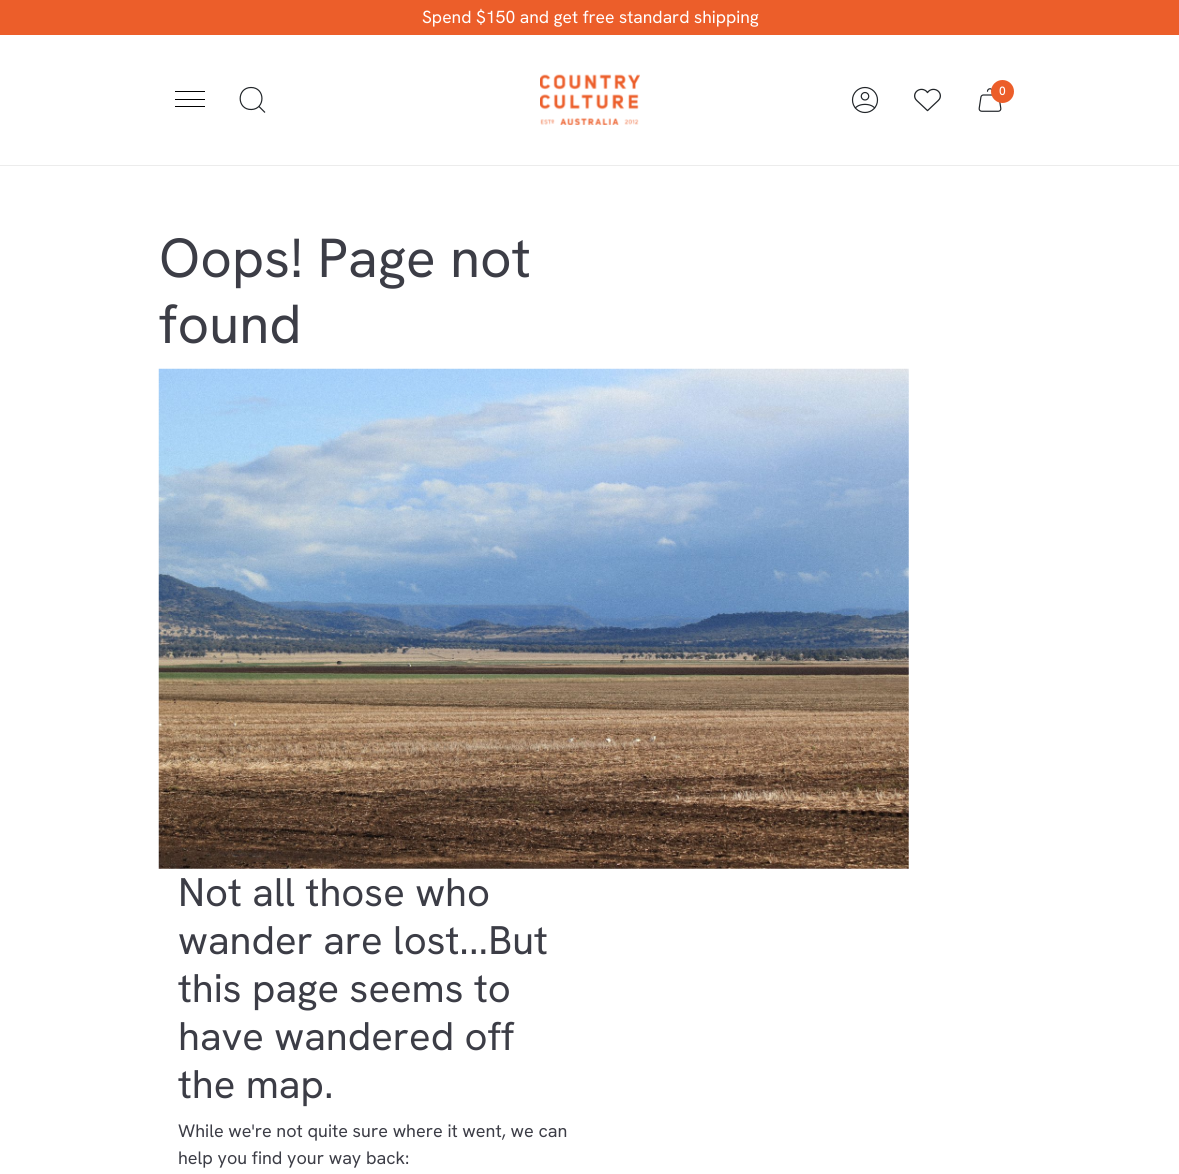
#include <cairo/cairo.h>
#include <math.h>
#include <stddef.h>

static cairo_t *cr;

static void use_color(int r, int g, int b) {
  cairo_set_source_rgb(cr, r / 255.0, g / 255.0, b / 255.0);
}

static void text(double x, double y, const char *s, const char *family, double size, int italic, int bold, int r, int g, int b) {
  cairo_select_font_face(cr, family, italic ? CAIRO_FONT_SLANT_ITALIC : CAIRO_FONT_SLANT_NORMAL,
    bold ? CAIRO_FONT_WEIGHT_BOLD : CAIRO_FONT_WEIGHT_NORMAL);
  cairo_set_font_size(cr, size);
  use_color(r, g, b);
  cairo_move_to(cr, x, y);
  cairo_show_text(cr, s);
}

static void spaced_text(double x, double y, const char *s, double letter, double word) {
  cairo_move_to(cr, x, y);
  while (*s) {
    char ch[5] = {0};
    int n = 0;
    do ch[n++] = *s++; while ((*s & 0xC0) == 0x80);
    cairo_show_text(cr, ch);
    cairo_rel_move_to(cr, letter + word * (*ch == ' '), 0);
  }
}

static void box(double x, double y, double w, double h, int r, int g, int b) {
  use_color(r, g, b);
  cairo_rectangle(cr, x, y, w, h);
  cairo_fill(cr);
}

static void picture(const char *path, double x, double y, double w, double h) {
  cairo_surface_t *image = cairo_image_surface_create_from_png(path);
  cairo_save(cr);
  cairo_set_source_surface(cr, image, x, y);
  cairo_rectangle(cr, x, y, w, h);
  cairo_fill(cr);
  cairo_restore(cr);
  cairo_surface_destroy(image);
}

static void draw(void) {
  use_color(255, 255, 255);
  cairo_paint(cr);
  box(0, 165, 1179, 1, 236, 236, 236);
  box(0, 0, 1179, 35, 236, 94, 42);
  box(175, 91, 30, 1, 0, 0, 0);
  box(175, 99, 30, 1, 0, 0, 0);
  box(175, 106, 30, 1, 0, 0, 0);
  cairo_new_path(cr);
  cairo_move_to(cr, 259, 106.5);
  cairo_line_to(cr, 265, 112.5);
  cairo_move_to(cr, 251, 87.5);
  cairo_curve_to(cr, 265.5, 87.5, 265.5, 109, 251.5, 109.5);
  cairo_curve_to(cr, 236.5, 110, 236.5, 87.5, 251, 87.5);
  cairo_close_path(cr);
  use_color(33, 37, 41);
  cairo_set_line_width(cr, 1.2);
  cairo_stroke(cr);
  picture("img_01.png", 540, 74, 100, 51);
  picture("img_02.png", 851, 86, 28, 28);
  picture("img_03.png", 914, 88, 27, 24);
  picture("img_04.png", 978, 88, 24, 24);
  use_color(236, 94, 42);
  cairo_arc(cr, 1002.5, 91.5, 11.5, 0, 2 * M_PI);
  cairo_fill(cr);
  picture("img_05.png", 158, 368, 751, 501);
  text(422, 23, "Spend $150 and get free standard shipping", "Hanken Grotesk", 17.5, 0, 0, 255, 255, 255);
  cairo_select_font_face(cr, "Hanken Grotesk Medium", CAIRO_FONT_SLANT_NORMAL, CAIRO_FONT_WEIGHT_NORMAL);
  cairo_set_font_size(cr, 12);
  spaced_text(999, 95, "0", 1, 0);
  text(159, 277, "Oops! Page not", "Hanken Grotesk", 55, 0, 0, 60, 61, 70);
  text(159, 343, "found", "Hanken Grotesk", 55, 0, 0, 60, 61, 70);
  text(178, 906, "Not all those who", "Hanken Grotesk", 40, 0, 0, 60, 61, 70);
  text(178, 954, "wander are lost...But", "Hanken Grotesk", 40, 0, 0, 60, 61, 70);
  text(178, 1002, "this page seems to", "Hanken Grotesk", 40, 0, 0, 60, 61, 70);
  text(178, 1050, "have wandered off", "Hanken Grotesk", 40, 0, 0, 60, 61, 70);
  text(178, 1098, "the map.", "Hanken Grotesk", 40, 0, 0, 60, 61, 70);
  text(178, 1137, "While we're not quite sure where it went, we can", "Hanken Grotesk", 18, 0, 0, 60, 61, 70);
  text(178, 1164, "help you find your way back:", "Hanken Grotesk", 18, 0, 0, 60, 61, 70);
}

int main(void) {
  cairo_surface_t *surface = cairo_image_surface_create(CAIRO_FORMAT_RGB24, 1179, 1174);
  cr = cairo_create(surface);
  cairo_font_options_t *options = cairo_font_options_create();
  cairo_font_options_set_hint_metrics(options, CAIRO_HINT_METRICS_OFF);
  cairo_font_options_set_hint_style(options, CAIRO_HINT_STYLE_NONE);
  cairo_set_font_options(cr, options);
  cairo_set_miter_limit(cr, 4);
  draw();
  cairo_surface_write_to_png(surface, "out.png");
  cairo_font_options_destroy(options);
  cairo_destroy(cr);
  cairo_surface_destroy(surface);
  return 0;
}
